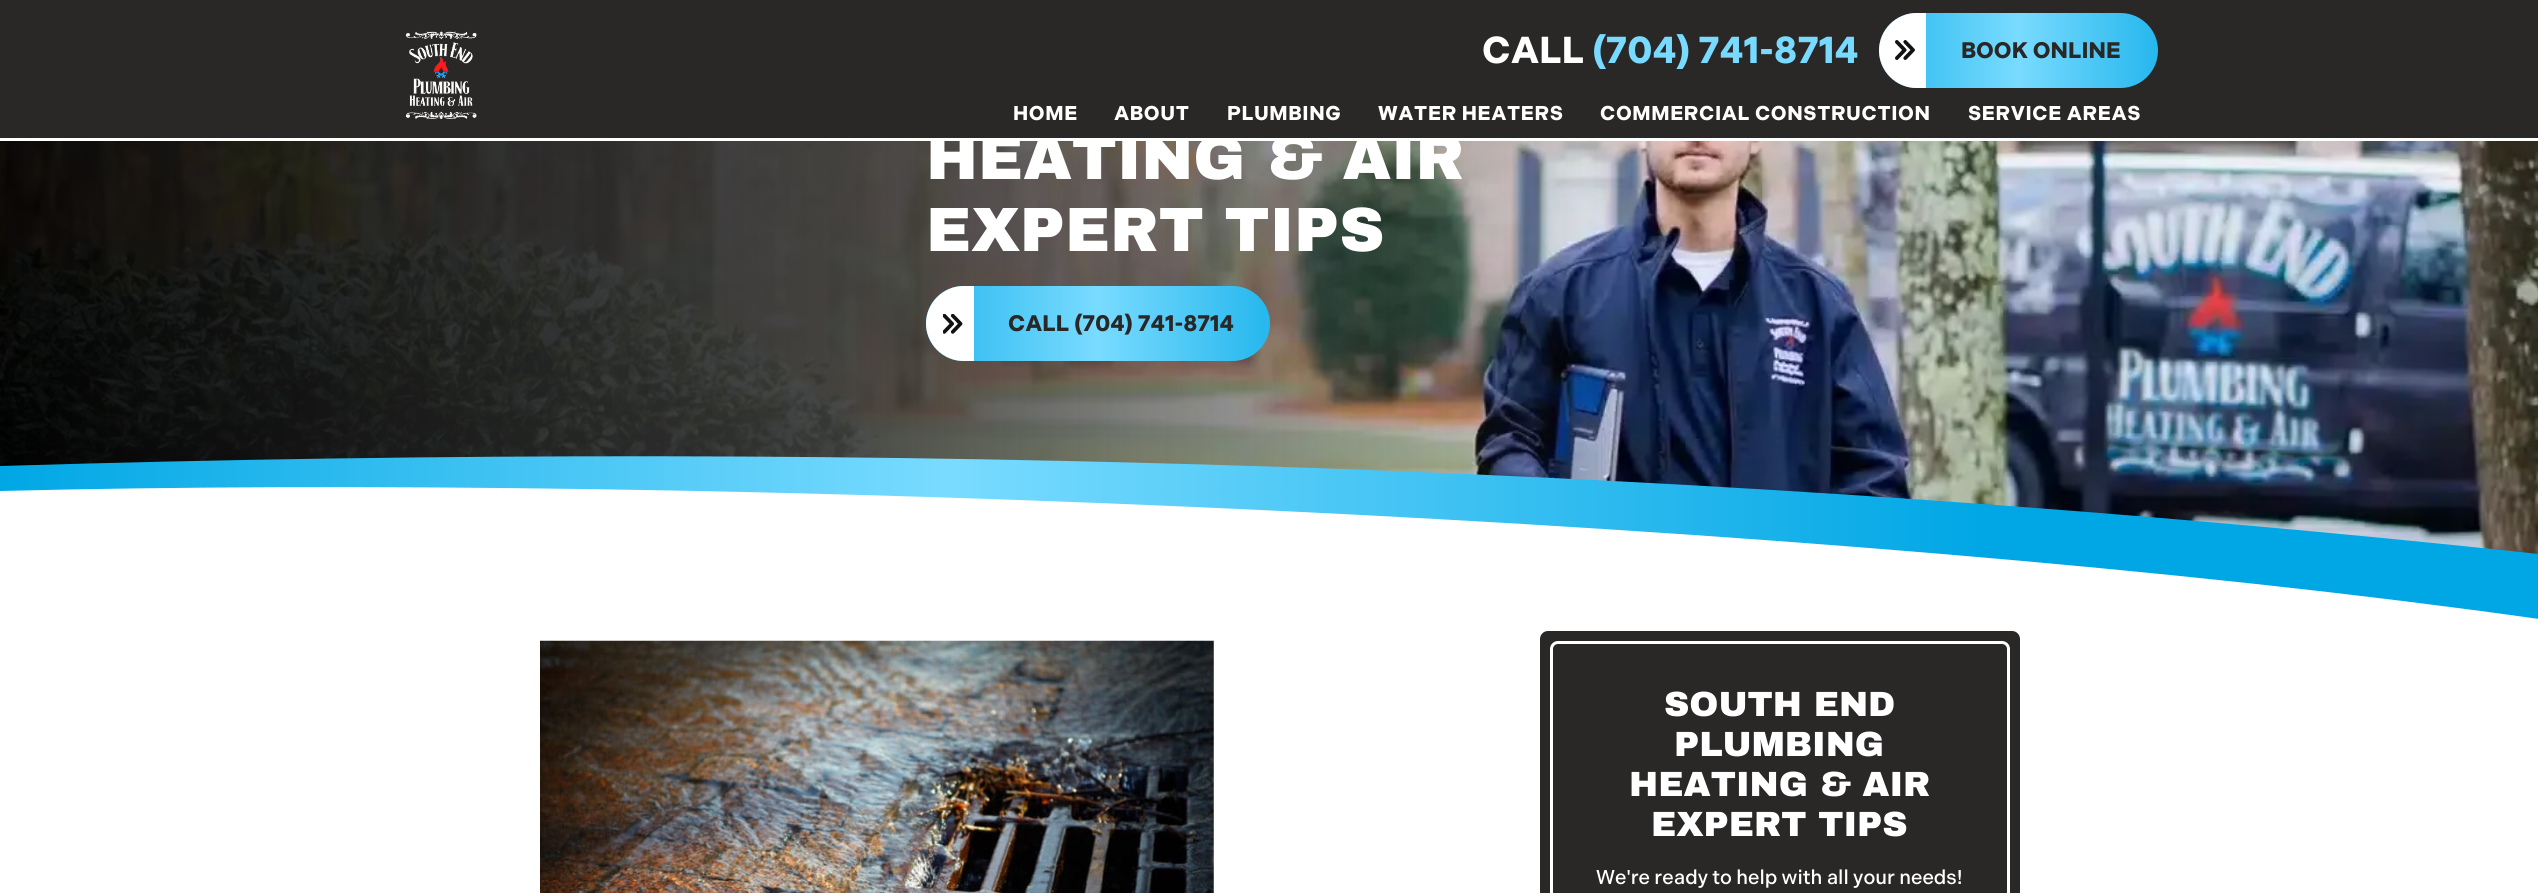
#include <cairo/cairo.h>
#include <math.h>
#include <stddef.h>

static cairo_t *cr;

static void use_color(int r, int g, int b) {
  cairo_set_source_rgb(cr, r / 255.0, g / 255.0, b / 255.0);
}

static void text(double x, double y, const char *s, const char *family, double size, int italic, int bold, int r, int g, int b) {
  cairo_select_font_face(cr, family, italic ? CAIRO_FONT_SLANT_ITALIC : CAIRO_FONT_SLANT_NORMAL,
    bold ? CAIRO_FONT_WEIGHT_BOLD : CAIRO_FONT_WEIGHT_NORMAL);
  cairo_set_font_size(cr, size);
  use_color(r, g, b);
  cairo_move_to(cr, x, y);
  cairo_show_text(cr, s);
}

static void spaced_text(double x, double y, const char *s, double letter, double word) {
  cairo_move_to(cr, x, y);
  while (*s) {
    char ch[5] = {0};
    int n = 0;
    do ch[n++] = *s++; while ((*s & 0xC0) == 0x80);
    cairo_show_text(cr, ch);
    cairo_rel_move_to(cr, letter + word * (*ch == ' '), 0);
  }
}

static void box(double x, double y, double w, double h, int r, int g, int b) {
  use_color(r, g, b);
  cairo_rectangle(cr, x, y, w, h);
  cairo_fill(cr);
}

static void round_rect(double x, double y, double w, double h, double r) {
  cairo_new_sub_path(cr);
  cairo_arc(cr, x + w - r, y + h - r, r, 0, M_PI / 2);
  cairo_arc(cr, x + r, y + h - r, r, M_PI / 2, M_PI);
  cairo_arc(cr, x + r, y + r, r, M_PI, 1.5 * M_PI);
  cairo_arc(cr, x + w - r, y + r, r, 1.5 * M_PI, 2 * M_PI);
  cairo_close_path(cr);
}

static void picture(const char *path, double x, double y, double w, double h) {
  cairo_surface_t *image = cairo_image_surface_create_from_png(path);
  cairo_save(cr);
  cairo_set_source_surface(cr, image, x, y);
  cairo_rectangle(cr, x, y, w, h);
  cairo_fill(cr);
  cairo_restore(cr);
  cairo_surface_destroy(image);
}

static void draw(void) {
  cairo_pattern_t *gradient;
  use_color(255, 255, 255);
  cairo_paint(cr);
  picture("img_03.png", 0, 141, 2538, 413);
  gradient = cairo_pattern_create_linear(0, 157, 1600, 157);
  cairo_pattern_add_color_stop_rgba(gradient, 0, 0, 0, 0, 0.89);
  cairo_pattern_add_color_stop_rgba(gradient, 0.52, 0.227, 0.227, 0.227, 0.9);
  cairo_pattern_add_color_stop_rgba(gradient, 1, 0.227, 0.227, 0.227, 0);
  cairo_set_source(cr, gradient);
  cairo_pattern_destroy(gradient);
  cairo_new_path(cr);
  cairo_move_to(cr, 0, -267);
  cairo_line_to(cr, 0, 481);
  cairo_line_to(cr, 1142, 481);
  cairo_line_to(cr, 1600, 513);
  cairo_line_to(cr, 1600, -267);
  cairo_close_path(cr);
  cairo_fill(cr);
  box(0, 138, 1588, 3, 255, 255, 255);
  gradient = cairo_pattern_create_linear(926, 324, 1270, 324);
  cairo_pattern_add_color_stop_rgba(gradient, 0, 0.157, 0.722, 0.933, 1);
  cairo_pattern_add_color_stop_rgba(gradient, 0.5, 0.475, 0.859, 1, 1);
  cairo_pattern_add_color_stop_rgba(gradient, 1, 0.149, 0.718, 0.929, 1);
  cairo_set_source(cr, gradient);
  cairo_pattern_destroy(gradient);
  round_rect(926, 286, 344, 75, 37.5);
  cairo_fill(cr);
  use_color(255, 255, 255);
  cairo_new_path(cr);
  cairo_move_to(cr, 963.5, 286);
  cairo_line_to(cr, 974, 286);
  cairo_line_to(cr, 974, 361);
  cairo_line_to(cr, 963.5, 361);
  cairo_curve_to(cr, 943, 361, 926, 344, 926, 323.5);
  cairo_curve_to(cr, 926, 303, 943, 286, 963.5, 286);
  cairo_close_path(cr);
  cairo_fill(cr);
  picture("img_04.png", 943, 314, 20, 20);
  gradient = cairo_pattern_create_linear(1980, 538, 0, 538);
  cairo_pattern_add_color_stop_rgba(gradient, 0, 0.004, 0.655, 0.898, 1);
  cairo_pattern_add_color_stop_rgba(gradient, 0.52, 0.475, 0.859, 1, 1);
  cairo_pattern_add_color_stop_rgba(gradient, 1, 0, 0.655, 0.898, 1);
  cairo_set_source(cr, gradient);
  cairo_pattern_destroy(gradient);
  cairo_set_fill_rule(cr, CAIRO_FILL_RULE_EVEN_ODD);
  cairo_new_path(cr);
  cairo_move_to(cr, 0, 466);
  cairo_curve_to(cr, 889, 439, 1736, 468, 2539, 554);
  cairo_line_to(cr, 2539, 619);
  cairo_curve_to(cr, 1824, 518, 712, 473, 0, 491);
  cairo_close_path(cr);
  cairo_fill(cr);
  picture("img_05.png", 540, 640, 674, 253);
  use_color(42, 39, 39);
  round_rect(1540, 631, 480, 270, 8);
  cairo_fill(cr);
  round_rect(1551.5, 642.5, 457, 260, 6.5);
  use_color(255, 255, 255);
  cairo_set_line_width(cr, 3);
  cairo_stroke(cr);
  text(926, 179, "HEATING & AIR", "Archivo Black Black", 62.5, 0, 0, 255, 255, 255);
  box(0, 0, 2538, 138, 42, 39, 39);
  gradient = cairo_pattern_create_linear(1879, 50, 2158, 50);
  cairo_pattern_add_color_stop_rgba(gradient, 0, 0.157, 0.722, 0.933, 1);
  cairo_pattern_add_color_stop_rgba(gradient, 0.5, 0.475, 0.859, 1, 1);
  cairo_pattern_add_color_stop_rgba(gradient, 1, 0.149, 0.718, 0.929, 1);
  cairo_set_source(cr, gradient);
  cairo_pattern_destroy(gradient);
  round_rect(1879, 13, 279, 75, 37.5);
  cairo_fill(cr);
  text(1961, 58, "BOOK ONLINE", "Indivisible", 22.5, 0, 1, 42, 39, 39);
  use_color(255, 255, 255);
  cairo_new_path(cr);
  cairo_move_to(cr, 1916.5, 13);
  cairo_line_to(cr, 1926, 13);
  cairo_line_to(cr, 1926, 88);
  cairo_line_to(cr, 1916.5, 88);
  cairo_curve_to(cr, 1896, 88, 1879, 71, 1879, 50.5);
  cairo_curve_to(cr, 1879, 30, 1896, 13, 1916.5, 13);
  cairo_close_path(cr);
  cairo_fill(cr);
  picture("img_02.png", 1895, 40, 20, 20);
  cairo_set_font_size(cr, 20);
  spaced_text(1968, 120, "SERVICE AREAS", 0.6, 0);
  spaced_text(1600, 120, "COMMERCIAL CONSTRUCTION", 0.6, 0);
  spaced_text(1378, 120, "WATER HEATERS", 0.6, 0);
  spaced_text(1227, 120, "PLUMBING", 0.6, 0);
  spaced_text(1114, 120, "ABOUT", 0.6, 0);
  spaced_text(1013, 120, "HOME", 0.6, 0);
  text(1592, 63, "(704) 741-8714", "Indivisible", 37.5, 0, 1, 120, 218, 255);
  text(1482, 63, "CALL", "Indivisible", 37.5, 0, 1, 255, 255, 255);
  picture("img_01.png", 405, 31, 72, 88);
  text(926, 251, "EXPERT TIPS", "Archivo Black Black", 62.5, 0, 0, 255, 255, 255);
  text(1008, 331, "CALL (704) 741-8714", "Indivisible", 22.5, 0, 1, 42, 39, 39);
  text(1664, 716, "SOUTH END", "Archivo Black Black", 35, 0, 0, 255, 255, 255);
  text(1674, 756, "PLUMBING", "Archivo Black Black", 35, 0, 0, 255, 255, 255);
  text(1629, 796, "HEATING & AIR", "Archivo Black Black", 35, 0, 0, 255, 255, 255);
  text(1651, 836, "EXPERT TIPS", "Archivo Black Black", 35, 0, 0, 255, 255, 255);
  text(1596, 884, "We're ready to help with all your needs!", "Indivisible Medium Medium", 20, 0, 0, 255, 255, 255);
}

int main(void) {
  cairo_surface_t *surface = cairo_image_surface_create(CAIRO_FORMAT_RGB24, 2538, 893);
  cr = cairo_create(surface);
  cairo_font_options_t *options = cairo_font_options_create();
  cairo_font_options_set_hint_metrics(options, CAIRO_HINT_METRICS_OFF);
  cairo_font_options_set_hint_style(options, CAIRO_HINT_STYLE_NONE);
  cairo_set_font_options(cr, options);
  cairo_set_miter_limit(cr, 4);
  draw();
  cairo_surface_write_to_png(surface, "out.png");
  cairo_font_options_destroy(options);
  cairo_destroy(cr);
  cairo_surface_destroy(surface);
  return 0;
}
